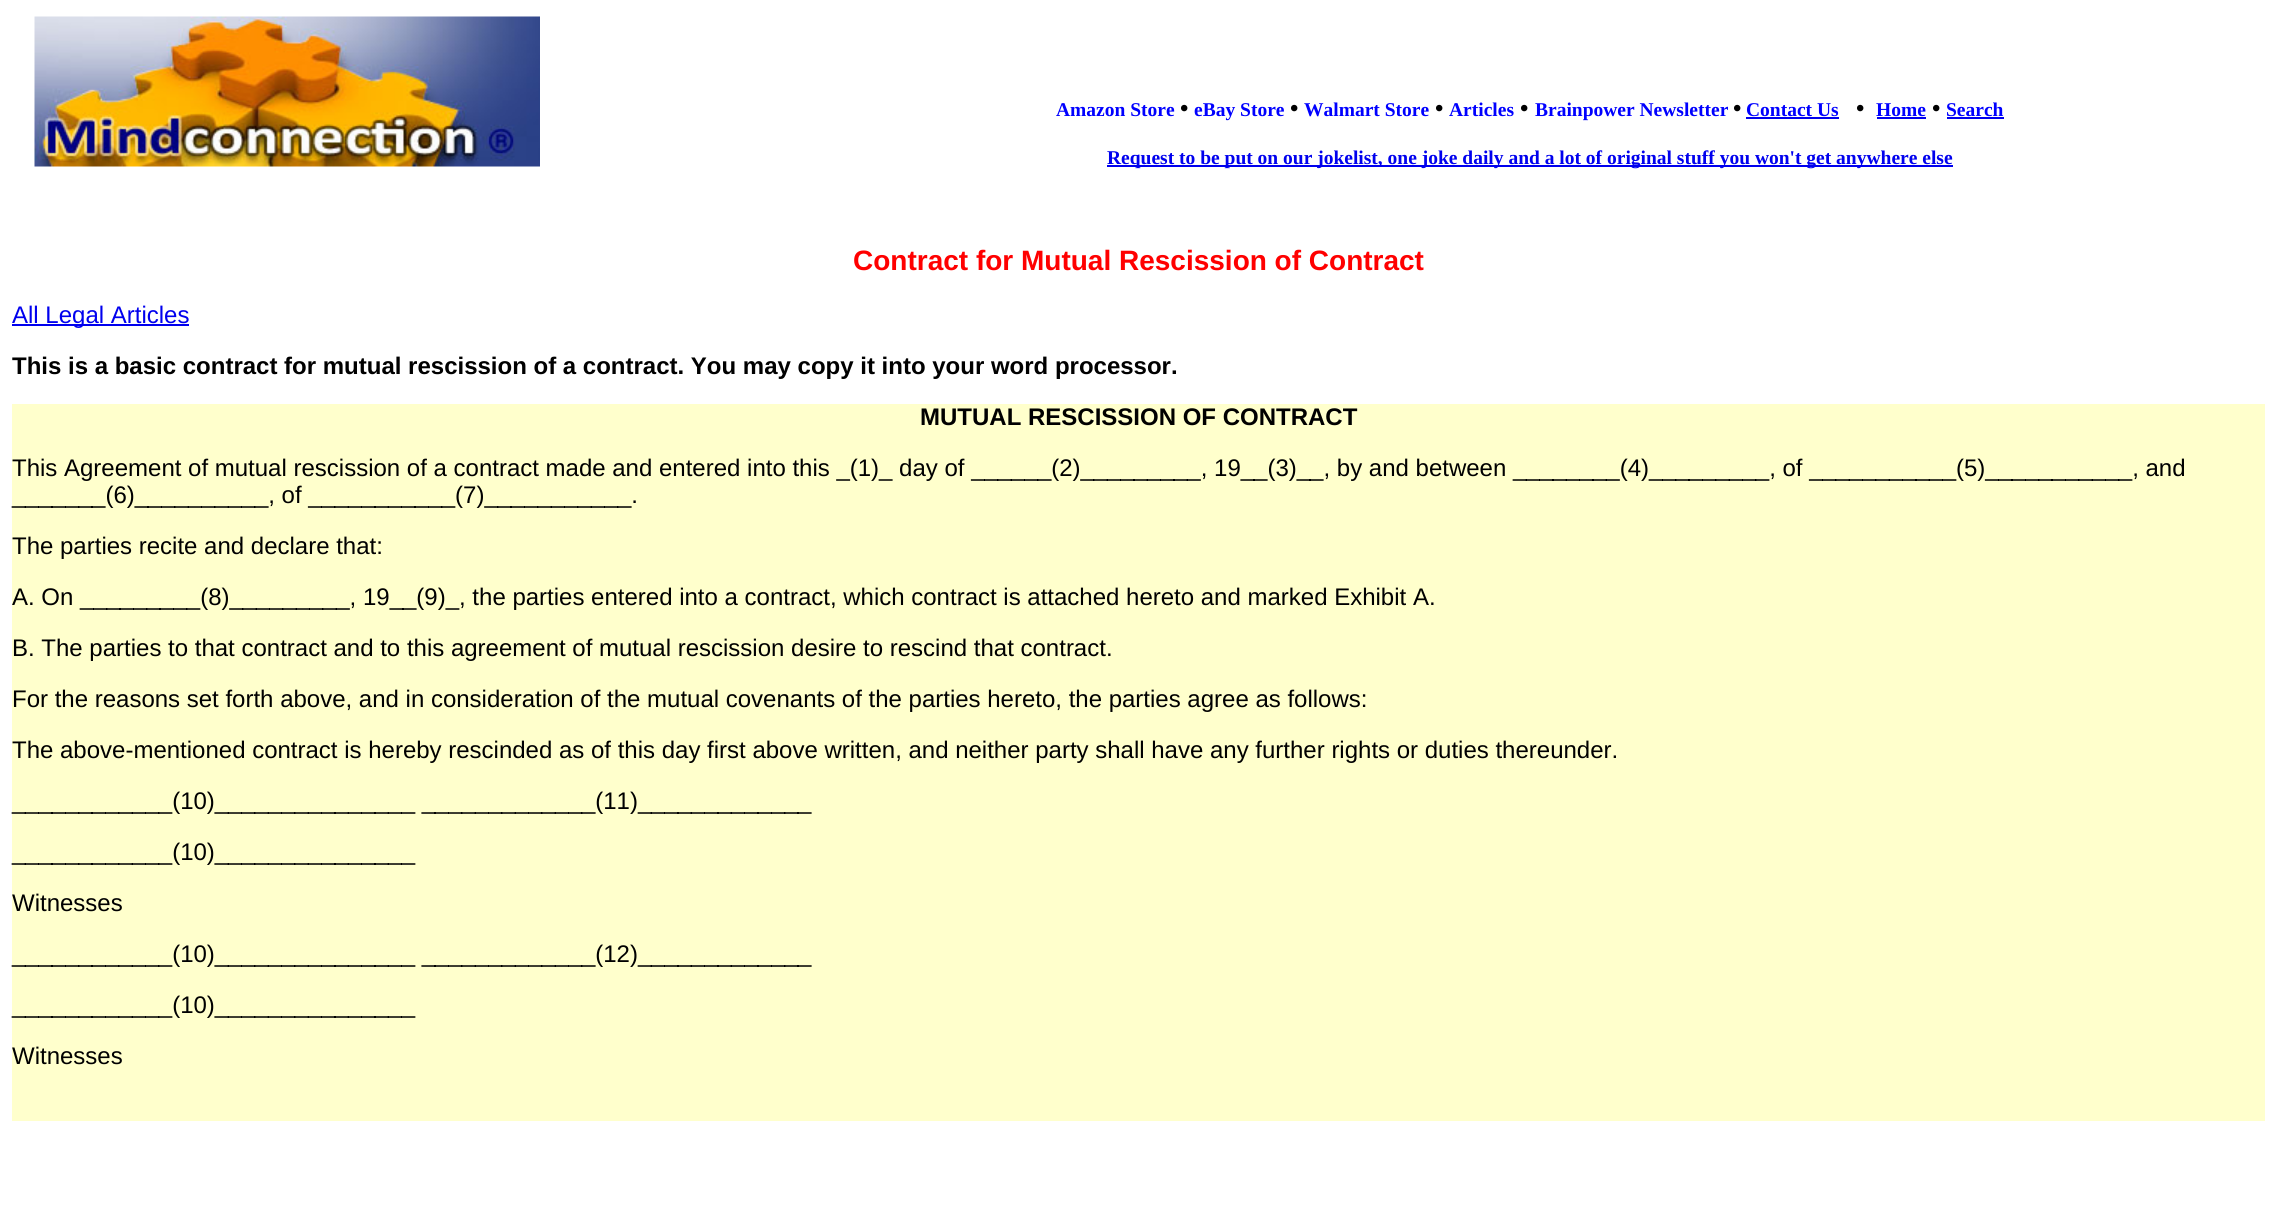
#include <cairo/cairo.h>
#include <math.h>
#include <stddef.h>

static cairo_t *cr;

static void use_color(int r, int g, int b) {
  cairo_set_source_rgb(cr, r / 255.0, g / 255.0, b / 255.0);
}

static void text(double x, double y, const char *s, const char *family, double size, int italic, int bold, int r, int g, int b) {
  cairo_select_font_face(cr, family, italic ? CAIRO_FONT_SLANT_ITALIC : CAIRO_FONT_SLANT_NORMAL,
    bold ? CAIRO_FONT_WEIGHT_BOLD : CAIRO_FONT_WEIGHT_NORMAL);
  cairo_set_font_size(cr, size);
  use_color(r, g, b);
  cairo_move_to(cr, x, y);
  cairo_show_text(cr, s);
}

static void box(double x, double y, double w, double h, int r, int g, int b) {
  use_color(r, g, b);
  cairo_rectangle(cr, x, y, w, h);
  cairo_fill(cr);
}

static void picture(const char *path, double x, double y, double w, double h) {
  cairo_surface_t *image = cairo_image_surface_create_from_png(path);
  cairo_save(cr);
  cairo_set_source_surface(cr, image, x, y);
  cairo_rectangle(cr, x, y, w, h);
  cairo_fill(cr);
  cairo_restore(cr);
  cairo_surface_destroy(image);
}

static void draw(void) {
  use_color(255, 255, 255);
  cairo_paint(cr);
  picture("img_01.png", 34, 16, 506, 151);
  box(1746, 117, 93, 2, 0, 0, 238);
  box(1877, 117, 49, 2, 0, 0, 238);
  box(1947, 117, 57, 2, 0, 0, 238);
  box(1107, 165, 846, 2, 0, 0, 238);
  box(12, 324, 177, 2, 0, 0, 238);
  box(12, 404, 2253, 717, 255, 255, 204);
  text(1056, 116, "Amazon Store", "Liberation Serif", 19.5, 0, 1, 0, 0, 255);
  text(1180, 116, "•", "Liberation Serif", 24, 0, 1, 0, 0, 0);
  text(1194, 116, "eBay Store", "Liberation Serif", 19.5, 0, 1, 0, 0, 255);
  text(1290, 116, "•", "Liberation Serif", 24, 0, 1, 0, 0, 0);
  text(1304, 116, "Walmart Store", "Liberation Serif", 19.5, 0, 1, 0, 0, 255);
  text(1435, 116, "•", "Liberation Serif", 24, 0, 1, 0, 0, 0);
  text(1449, 116, "Articles", "Liberation Serif", 19.5, 0, 1, 0, 0, 255);
  text(1520, 116, "•", "Liberation Serif", 24, 0, 1, 0, 0, 0);
  text(1535, 116, "Brainpower Newsletter", "Liberation Serif", 19.5, 0, 1, 0, 0, 255);
  text(1733, 116, "•", "Liberation Serif", 24, 0, 1, 0, 0, 0);
  text(1746, 116, "Contact Us", "Liberation Serif", 19.5, 0, 1, 0, 0, 255);
  text(1856, 116, "•", "Liberation Serif", 24, 0, 1, 0, 0, 0);
  text(1876, 116, "Home", "Liberation Serif", 19.5, 0, 1, 0, 0, 255);
  text(1932, 116, "•", "Liberation Serif", 24, 0, 1, 0, 0, 0);
  text(1946, 116, "Search", "Liberation Serif", 19.5, 0, 1, 0, 0, 255);
  text(1107, 164, "Request to be put on our jokelist, one joke daily and a lot of original stuff you won't get anywhere else", "Liberation Serif", 19.5, 0, 1, 0, 0, 238);
  text(853, 270, "Contract for Mutual Rescission of Contract", "Liberation Sans", 28, 0, 1, 255, 0, 0);
  text(12, 323, "All Legal Articles", "Liberation Sans", 24, 0, 0, 0, 0, 238);
  text(12, 374, "This is a basic contract for mutual rescission of a contract. You may copy it into your word processor.", "Liberation Sans", 24, 0, 1, 0, 0, 0);
  text(920, 425, "MUTUAL RESCISSION OF CONTRACT", "Liberation Sans", 24, 0, 1, 0, 0, 0);
  text(12, 476, "This Agreement of mutual rescission of a contract made and entered into this _(1)_ day of ______(2)_________, 19__(3)__, by and between ________(4)_________, of ___________(5)___________, and", "Liberation Sans", 24, 0, 0, 0, 0, 0);
  text(12, 503, "_______(6)__________, of ___________(7)___________.", "Liberation Sans", 24, 0, 0, 0, 0, 0);
  text(12, 554, "The parties recite and declare that:", "Liberation Sans", 24, 0, 0, 0, 0, 0);
  text(12, 605, "A. On _________(8)_________, 19__(9)_, the parties entered into a contract, which contract is attached hereto and marked Exhibit A.", "Liberation Sans", 24, 0, 0, 0, 0, 0);
  text(12, 656, "B. The parties to that contract and to this agreement of mutual rescission desire to rescind that contract.", "Liberation Sans", 24, 0, 0, 0, 0, 0);
  text(12, 707, "For the reasons set forth above, and in consideration of the mutual covenants of the parties hereto, the parties agree as follows:", "Liberation Sans", 24, 0, 0, 0, 0, 0);
  text(12, 758, "The above-mentioned contract is hereby rescinded as of this day first above written, and neither party shall have any further rights or duties thereunder.", "Liberation Sans", 24, 0, 0, 0, 0, 0);
  text(12, 809, "____________(10)_______________ _____________(11)_____________", "Liberation Sans", 24, 0, 0, 0, 0, 0);
  text(12, 860, "____________(10)_______________", "Liberation Sans", 24, 0, 0, 0, 0, 0);
  text(12, 911, "Witnesses", "Liberation Sans", 24, 0, 0, 0, 0, 0);
  text(12, 962, "____________(10)_______________ _____________(12)_____________", "Liberation Sans", 24, 0, 0, 0, 0, 0);
  text(12, 1013, "____________(10)_______________", "Liberation Sans", 24, 0, 0, 0, 0, 0);
  text(12, 1064, "Witnesses", "Liberation Sans", 24, 0, 0, 0, 0, 0);
}

int main(void) {
  cairo_surface_t *surface = cairo_image_surface_create(CAIRO_FORMAT_RGB24, 2277, 1211);
  cr = cairo_create(surface);
  cairo_font_options_t *options = cairo_font_options_create();
  cairo_font_options_set_hint_metrics(options, CAIRO_HINT_METRICS_OFF);
  cairo_font_options_set_hint_style(options, CAIRO_HINT_STYLE_NONE);
  cairo_set_font_options(cr, options);
  cairo_set_miter_limit(cr, 4);
  draw();
  cairo_surface_write_to_png(surface, "out.png");
  cairo_font_options_destroy(options);
  cairo_destroy(cr);
  cairo_surface_destroy(surface);
  return 0;
}
